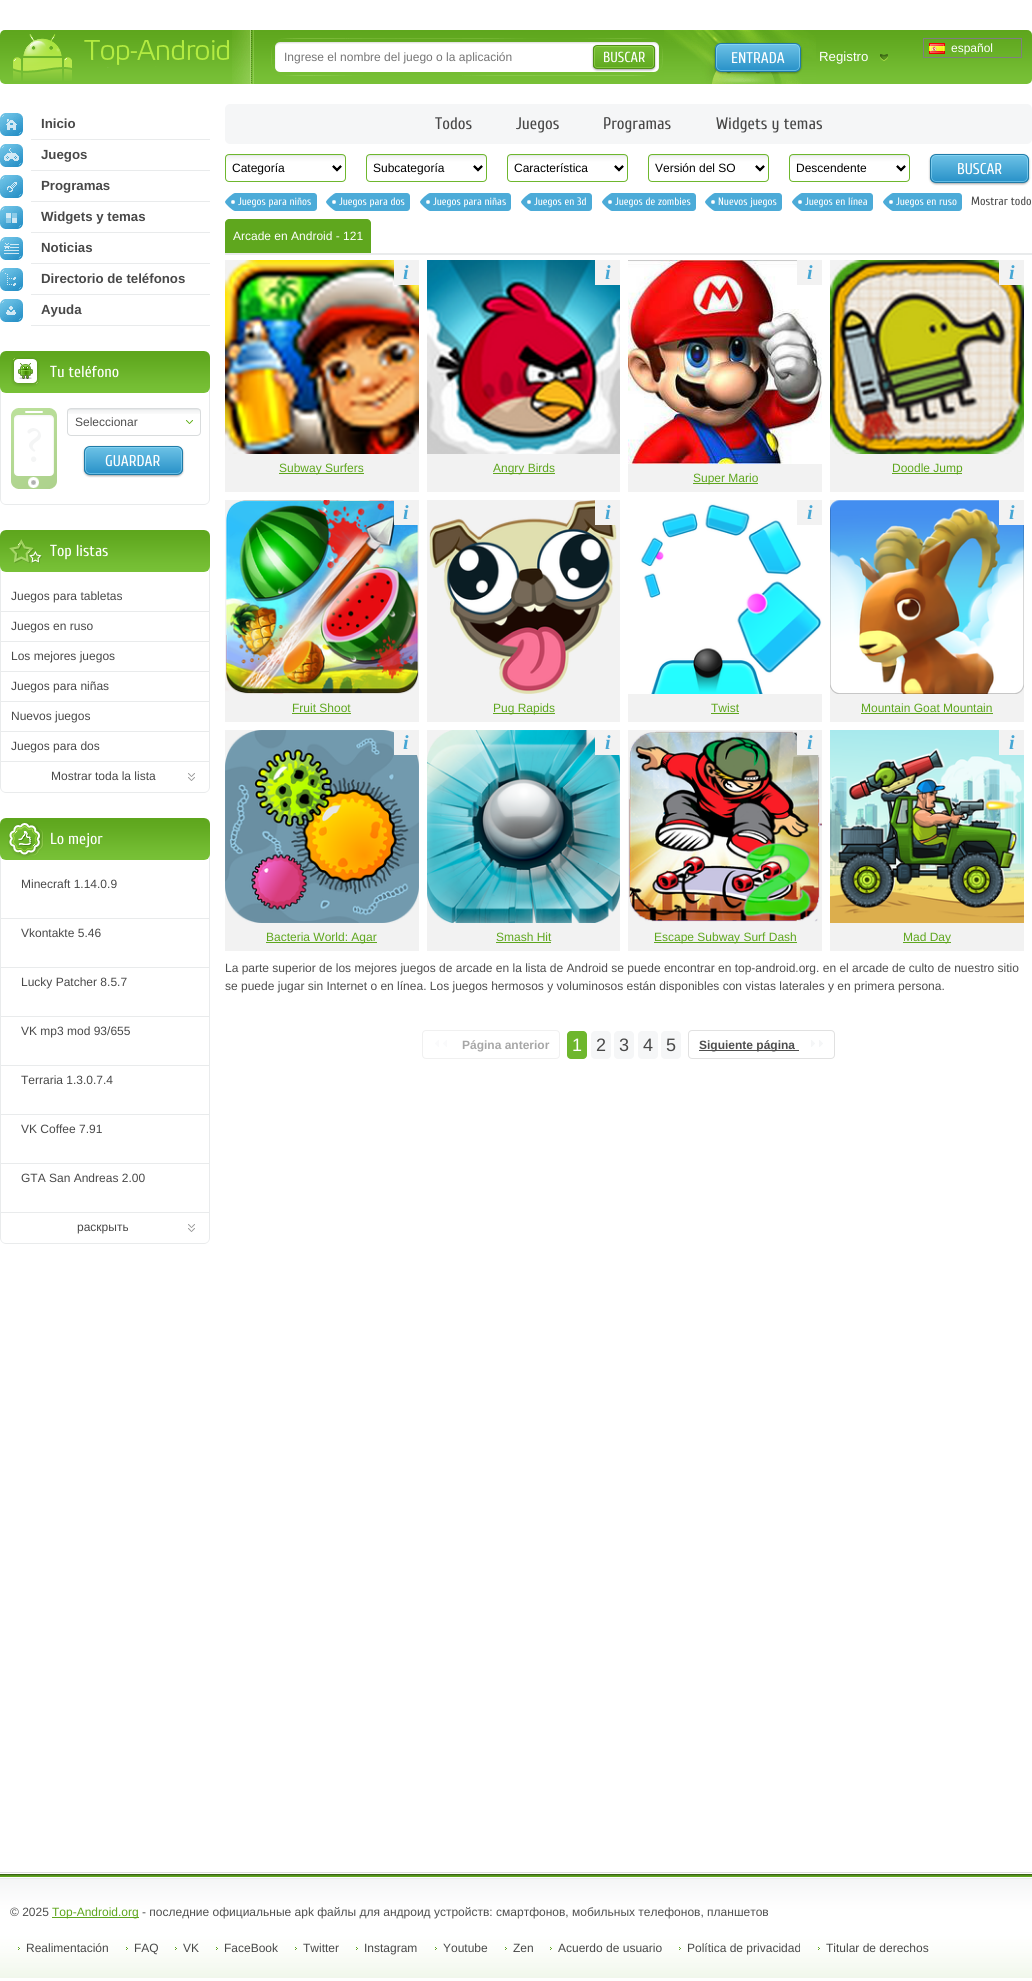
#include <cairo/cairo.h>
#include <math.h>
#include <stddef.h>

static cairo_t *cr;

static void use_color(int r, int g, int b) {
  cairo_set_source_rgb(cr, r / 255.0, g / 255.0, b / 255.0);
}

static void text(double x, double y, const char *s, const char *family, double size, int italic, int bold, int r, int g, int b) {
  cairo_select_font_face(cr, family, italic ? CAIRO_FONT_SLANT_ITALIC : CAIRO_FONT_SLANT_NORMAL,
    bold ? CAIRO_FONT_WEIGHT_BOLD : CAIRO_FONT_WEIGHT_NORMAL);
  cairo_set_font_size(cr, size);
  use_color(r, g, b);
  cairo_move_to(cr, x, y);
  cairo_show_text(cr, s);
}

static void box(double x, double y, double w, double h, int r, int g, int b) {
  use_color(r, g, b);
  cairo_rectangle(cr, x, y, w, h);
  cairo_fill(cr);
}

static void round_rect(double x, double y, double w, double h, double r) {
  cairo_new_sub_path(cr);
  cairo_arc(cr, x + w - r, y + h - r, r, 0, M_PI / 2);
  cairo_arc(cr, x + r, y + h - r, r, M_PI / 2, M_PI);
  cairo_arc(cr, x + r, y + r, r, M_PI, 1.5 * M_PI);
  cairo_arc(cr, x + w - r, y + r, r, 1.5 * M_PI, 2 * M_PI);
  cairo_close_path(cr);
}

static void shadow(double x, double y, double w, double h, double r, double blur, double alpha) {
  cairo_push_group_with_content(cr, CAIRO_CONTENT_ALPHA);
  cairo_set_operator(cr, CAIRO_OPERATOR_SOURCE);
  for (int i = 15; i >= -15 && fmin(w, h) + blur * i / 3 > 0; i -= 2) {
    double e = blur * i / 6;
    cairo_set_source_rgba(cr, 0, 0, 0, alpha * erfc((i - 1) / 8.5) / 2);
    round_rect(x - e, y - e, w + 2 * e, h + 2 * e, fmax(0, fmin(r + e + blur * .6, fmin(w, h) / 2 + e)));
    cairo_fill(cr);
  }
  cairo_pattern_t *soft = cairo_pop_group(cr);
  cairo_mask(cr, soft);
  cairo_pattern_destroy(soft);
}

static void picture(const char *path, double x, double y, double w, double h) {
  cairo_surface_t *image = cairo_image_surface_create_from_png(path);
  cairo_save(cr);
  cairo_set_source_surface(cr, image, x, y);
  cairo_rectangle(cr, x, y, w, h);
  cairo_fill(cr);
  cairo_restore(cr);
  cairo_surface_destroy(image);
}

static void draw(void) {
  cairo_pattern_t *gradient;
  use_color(255, 255, 255);
  cairo_paint(cr);
  picture("img_01.png", 0, 30, 1032, 54);
  picture("img_02.png", 664, 30, 152, 54);
  picture("img_03.png", 232, 30, 22, 54);
  picture("img_04.png", 13, 34, 216, 47);
  picture("img_05.png", 929, 43, 16, 11);
  cairo_rectangle(cr, 923.5, 38.5, 98, 19);
  use_color(128, 128, 128);
  cairo_set_line_width(cr, 1);
  cairo_stroke(cr);
  picture("img_06.png", 271, 38, 191, 38);
  picture("img_07.png", 462, 38, 201, 38);
  use_color(0, 0, 0);
  shadow(593, 46, 62, 24, 4, 1, 0.35);
  cairo_save(cr);
  round_rect(593, 45, 62, 24, 4);
  cairo_clip(cr);
  gradient = cairo_pattern_create_linear(624, 68, 624, 46);
  cairo_pattern_add_color_stop_rgba(gradient, 0, 0.376, 0.659, 0.122, 1);
  cairo_pattern_add_color_stop_rgba(gradient, 1, 0.467, 0.749, 0.208, 1);
  cairo_set_source(cr, gradient);
  cairo_pattern_destroy(gradient);
  cairo_rectangle(cr, 593, 46, 62, 22);
  cairo_fill(cr);
  cairo_restore(cr);
  round_rect(594.5, 46.5, 59, 21, 2.5);
  cairo_set_source_rgba(cr, 0.686, 0.929, 0.404, 0.4);
  cairo_stroke(cr);
  round_rect(593.5, 45.5, 61, 23, 3.5);
  use_color(79, 142, 23);
  cairo_stroke(cr);
  use_color(0, 0, 0);
  shadow(715, 44, 86, 29, 6, 1, 0.35);
  cairo_save(cr);
  round_rect(715, 43, 86, 29, 6);
  cairo_clip(cr);
  gradient = cairo_pattern_create_linear(758, 71, 758, 44);
  cairo_pattern_add_color_stop_rgba(gradient, 0, 0.157, 0.569, 0.784, 1);
  cairo_pattern_add_color_stop_rgba(gradient, 1, 0.427, 0.761, 0.902, 1);
  cairo_set_source(cr, gradient);
  cairo_pattern_destroy(gradient);
  cairo_rectangle(cr, 715, 44, 86, 27);
  cairo_fill(cr);
  cairo_restore(cr);
  round_rect(716.5, 44.5, 83, 26, 4.5);
  cairo_set_source_rgba(cr, 0.608, 0.894, 1, 0.5);
  cairo_stroke(cr);
  round_rect(715.5, 43.5, 85, 28, 5.5);
  use_color(33, 123, 167);
  cairo_stroke(cr);
  picture("img_08.png", 880, 54, 8, 7);
  box(31, 139, 179, 1, 233, 235, 236);
  picture("img_09.png", 0, 113, 31, 27);
  box(31, 170, 179, 1, 233, 235, 236);
  picture("img_10.png", 0, 144, 31, 27);
  box(31, 201, 179, 1, 233, 235, 236);
  picture("img_11.png", 0, 175, 31, 27);
  box(31, 232, 179, 1, 233, 235, 236);
  picture("img_12.png", 0, 206, 31, 27);
  box(31, 263, 179, 1, 233, 235, 236);
  picture("img_13.png", 0, 237, 31, 27);
  box(31, 294, 179, 1, 233, 235, 236);
  picture("img_14.png", 0, 268, 31, 27);
  box(31, 325, 179, 1, 233, 235, 236);
  picture("img_15.png", 0, 299, 31, 27);
  cairo_set_fill_rule(cr, CAIRO_FILL_RULE_EVEN_ODD);
  cairo_new_path(cr);
  cairo_move_to(cr, 6, 351);
  cairo_line_to(cr, 204, 351);
  cairo_curve_to(cr, 207, 351, 210, 354, 210, 357);
  cairo_line_to(cr, 210, 499);
  cairo_curve_to(cr, 210, 502, 207, 505, 204, 505);
  cairo_line_to(cr, 6, 505);
  cairo_curve_to(cr, 3, 505, 0, 502, 0, 499);
  cairo_line_to(cr, 0, 357);
  cairo_curve_to(cr, 0, 354, 3, 351, 6, 351);
  cairo_close_path(cr);
  cairo_move_to(cr, 6, 351);
  cairo_line_to(cr, 204, 351);
  cairo_curve_to(cr, 207, 351, 209, 354, 209, 357);
  cairo_line_to(cr, 209, 499);
  cairo_curve_to(cr, 209, 502, 207, 504, 204, 504);
  cairo_line_to(cr, 6, 504);
  cairo_curve_to(cr, 3, 504, 1, 502, 1, 499);
  cairo_line_to(cr, 1, 357);
  cairo_curve_to(cr, 1, 354, 3, 351, 6, 351);
  cairo_close_path(cr);
  cairo_fill(cr);
  picture("img_16.png", 0, 351, 210, 42);
  picture("img_17.png", 11, 357, 29, 30);
  picture("img_18.png", 11, 408, 46, 81);
  picture("img_19.png", 67, 409, 134, 5);
  round_rect(67.5, 408.5, 133, 27, 3.5);
  use_color(217, 220, 221);
  cairo_stroke(cr);
  picture("img_20.png", 186, 420, 7, 4);
  use_color(0, 0, 0);
  shadow(84, 447, 99, 29, 6, 1, 0.35);
  cairo_save(cr);
  cairo_set_fill_rule(cr, CAIRO_FILL_RULE_WINDING);
  round_rect(84, 446, 99, 29, 6);
  cairo_clip(cr);
  gradient = cairo_pattern_create_linear(134, 474, 134, 447);
  cairo_pattern_add_color_stop_rgba(gradient, 0, 0.157, 0.569, 0.784, 1);
  cairo_pattern_add_color_stop_rgba(gradient, 1, 0.427, 0.761, 0.902, 1);
  cairo_set_source(cr, gradient);
  cairo_pattern_destroy(gradient);
  cairo_rectangle(cr, 84, 447, 99, 27);
  cairo_fill(cr);
  cairo_restore(cr);
  round_rect(85.5, 447.5, 96, 26, 4.5);
  cairo_set_source_rgba(cr, 0.608, 0.894, 1, 0.5);
  cairo_stroke(cr);
  round_rect(84.5, 446.5, 98, 28, 5.5);
  use_color(33, 123, 167);
  cairo_stroke(cr);
  use_color(233, 235, 236);
  cairo_new_path(cr);
  cairo_move_to(cr, 6, 530);
  cairo_line_to(cr, 204, 530);
  cairo_curve_to(cr, 207, 530, 210, 533, 210, 536);
  cairo_line_to(cr, 210, 787);
  cairo_curve_to(cr, 210, 790, 207, 793, 204, 793);
  cairo_line_to(cr, 6, 793);
  cairo_curve_to(cr, 3, 793, 0, 790, 0, 787);
  cairo_line_to(cr, 0, 536);
  cairo_curve_to(cr, 0, 533, 3, 530, 6, 530);
  cairo_close_path(cr);
  cairo_move_to(cr, 6, 530);
  cairo_line_to(cr, 204, 530);
  cairo_curve_to(cr, 207, 530, 209, 533, 209, 536);
  cairo_line_to(cr, 209, 787);
  cairo_curve_to(cr, 209, 790, 207, 792, 204, 792);
  cairo_line_to(cr, 6, 792);
  cairo_curve_to(cr, 3, 792, 1, 790, 1, 787);
  cairo_line_to(cr, 1, 536);
  cairo_curve_to(cr, 1, 533, 3, 530, 6, 530);
  cairo_close_path(cr);
  cairo_fill(cr);
  picture("img_16.png", 0, 530, 210, 42);
  picture("img_21.png", 9, 539, 33, 25);
  box(1, 611, 208, 1, 233, 235, 236);
  box(1, 641, 208, 1, 233, 235, 236);
  box(1, 671, 208, 1, 233, 235, 236);
  box(1, 701, 208, 1, 233, 235, 236);
  box(1, 731, 208, 1, 233, 235, 236);
  picture("img_22.png", 188, 773, 7, 8);
  box(0, 761, 210, 1, 233, 235, 236);
  cairo_new_path(cr);
  cairo_move_to(cr, 6, 818);
  cairo_line_to(cr, 204, 818);
  cairo_curve_to(cr, 207, 818, 210, 821, 210, 824);
  cairo_line_to(cr, 210, 1238);
  cairo_curve_to(cr, 210, 1241, 207, 1244, 204, 1244);
  cairo_line_to(cr, 6, 1244);
  cairo_curve_to(cr, 3, 1244, 0, 1241, 0, 1238);
  cairo_line_to(cr, 0, 824);
  cairo_curve_to(cr, 0, 821, 3, 818, 6, 818);
  cairo_close_path(cr);
  cairo_move_to(cr, 6, 818);
  cairo_line_to(cr, 204, 818);
  cairo_curve_to(cr, 207, 818, 209, 821, 209, 824);
  cairo_line_to(cr, 209, 1238);
  cairo_curve_to(cr, 209, 1241, 207, 1243, 204, 1243);
  cairo_line_to(cr, 6, 1243);
  cairo_curve_to(cr, 3, 1243, 1, 1241, 1, 1238);
  cairo_line_to(cr, 1, 824);
  cairo_curve_to(cr, 1, 821, 3, 818, 6, 818);
  cairo_close_path(cr);
  cairo_fill(cr);
  picture("img_16.png", 0, 818, 210, 42);
  picture("img_23.png", 8, 822, 36, 36);
  box(1, 918, 208, 1, 233, 235, 236);
  box(1, 967, 208, 1, 233, 235, 236);
  box(1, 1016, 208, 1, 233, 235, 236);
  box(1, 1065, 208, 1, 233, 235, 236);
  box(1, 1114, 208, 1, 233, 235, 236);
  box(1, 1163, 208, 1, 233, 235, 236);
  picture("img_22.png", 188, 1224, 7, 8);
  box(0, 1212, 210, 1, 233, 235, 236);
  use_color(245, 246, 247);
  round_rect(225, 104, 807, 40, 5);
  cairo_fill(cr);
  picture("img_24.png", 225, 155, 121, 17);
  round_rect(225.5, 154.5, 120, 27, 3.5);
  use_color(110, 183, 45);
  cairo_stroke(cr);
  cairo_new_path(cr);
  cairo_move_to(cr, 333, 166);
  cairo_line_to(cr, 337, 170);
  cairo_line_to(cr, 341, 166);
  use_color(0, 0, 0);
  cairo_set_line_width(cr, 2);
  cairo_stroke(cr);
  picture("img_24.png", 366, 155, 121, 17);
  round_rect(366.5, 154.5, 120, 27, 3.5);
  use_color(110, 183, 45);
  cairo_set_line_width(cr, 1);
  cairo_stroke(cr);
  cairo_new_path(cr);
  cairo_move_to(cr, 474, 166);
  cairo_line_to(cr, 478, 170);
  cairo_line_to(cr, 482, 166);
  use_color(0, 0, 0);
  cairo_set_line_width(cr, 2);
  cairo_stroke(cr);
  picture("img_25.png", 507, 155, 121, 17);
  round_rect(507.5, 154.5, 120, 27, 3.5);
  use_color(110, 183, 45);
  cairo_set_line_width(cr, 1);
  cairo_stroke(cr);
  cairo_new_path(cr);
  cairo_move_to(cr, 615, 166);
  cairo_line_to(cr, 619, 170);
  cairo_line_to(cr, 623, 166);
  use_color(0, 0, 0);
  cairo_set_line_width(cr, 2);
  cairo_stroke(cr);
  picture("img_26.png", 648, 155, 121, 17);
  round_rect(648.5, 154.5, 120, 27, 3.5);
  use_color(110, 183, 45);
  cairo_set_line_width(cr, 1);
  cairo_stroke(cr);
  cairo_new_path(cr);
  cairo_move_to(cr, 756, 166);
  cairo_line_to(cr, 760, 170);
  cairo_line_to(cr, 764, 166);
  use_color(0, 0, 0);
  cairo_set_line_width(cr, 2);
  cairo_stroke(cr);
  picture("img_24.png", 789, 155, 121, 17);
  round_rect(789.5, 154.5, 120, 27, 3.5);
  use_color(110, 183, 45);
  cairo_set_line_width(cr, 1);
  cairo_stroke(cr);
  cairo_new_path(cr);
  cairo_move_to(cr, 897, 166);
  cairo_line_to(cr, 901, 170);
  cairo_line_to(cr, 905, 166);
  use_color(0, 0, 0);
  cairo_set_line_width(cr, 2);
  cairo_stroke(cr);
  use_color(0, 0, 0);
  shadow(930, 155, 99, 29, 6, 1, 0.35);
  cairo_save(cr);
  cairo_set_fill_rule(cr, CAIRO_FILL_RULE_WINDING);
  round_rect(930, 154, 99, 29, 6);
  cairo_clip(cr);
  gradient = cairo_pattern_create_linear(980, 182, 980, 155);
  cairo_pattern_add_color_stop_rgba(gradient, 0, 0.157, 0.569, 0.784, 1);
  cairo_pattern_add_color_stop_rgba(gradient, 1, 0.427, 0.761, 0.902, 1);
  cairo_set_source(cr, gradient);
  cairo_pattern_destroy(gradient);
  cairo_rectangle(cr, 930, 155, 99, 27);
  cairo_fill(cr);
  cairo_restore(cr);
  round_rect(931.5, 155.5, 96, 26, 4.5);
  cairo_set_source_rgba(cr, 0.608, 0.894, 1, 0.5);
  cairo_set_line_width(cr, 1);
  cairo_stroke(cr);
  round_rect(930.5, 154.5, 98, 28, 5.5);
  use_color(33, 123, 167);
  cairo_stroke(cr);
  use_color(76, 171, 216);
  cairo_new_path(cr);
  cairo_move_to(cr, 225, 193);
  cairo_line_to(cr, 314, 193);
  cairo_curve_to(cr, 315.5, 193, 317, 194.5, 317, 196);
  cairo_line_to(cr, 317, 208);
  cairo_curve_to(cr, 317, 209.5, 315.5, 211, 314, 211);
  cairo_line_to(cr, 225, 211);
  cairo_close_path(cr);
  cairo_fill(cr);
  picture("img_27.png", 225, 193, 10, 18);
  cairo_new_path(cr);
  cairo_move_to(cr, 326, 193);
  cairo_line_to(cr, 407, 193);
  cairo_curve_to(cr, 408.5, 193, 410, 194.5, 410, 196);
  cairo_line_to(cr, 410, 208);
  cairo_curve_to(cr, 410, 209.5, 408.5, 211, 407, 211);
  cairo_line_to(cr, 326, 211);
  cairo_close_path(cr);
  cairo_fill(cr);
  picture("img_27.png", 326, 193, 10, 18);
  cairo_new_path(cr);
  cairo_move_to(cr, 420, 193);
  cairo_line_to(cr, 508, 193);
  cairo_curve_to(cr, 509.5, 193, 511, 194.5, 511, 196);
  cairo_line_to(cr, 511, 208);
  cairo_curve_to(cr, 511, 209.5, 509.5, 211, 508, 211);
  cairo_line_to(cr, 420, 211);
  cairo_close_path(cr);
  cairo_fill(cr);
  picture("img_27.png", 420, 193, 10, 18);
  cairo_new_path(cr);
  cairo_move_to(cr, 521, 193);
  cairo_line_to(cr, 589, 193);
  cairo_curve_to(cr, 590.5, 193, 592, 194.5, 592, 196);
  cairo_line_to(cr, 592, 208);
  cairo_curve_to(cr, 592, 209.5, 590.5, 211, 589, 211);
  cairo_line_to(cr, 521, 211);
  cairo_close_path(cr);
  cairo_fill(cr);
  picture("img_27.png", 521, 193, 10, 18);
  cairo_new_path(cr);
  cairo_move_to(cr, 602, 193);
  cairo_line_to(cr, 693, 193);
  cairo_curve_to(cr, 694.5, 193, 696, 194.5, 696, 196);
  cairo_line_to(cr, 696, 208);
  cairo_curve_to(cr, 696, 209.5, 694.5, 211, 693, 211);
  cairo_line_to(cr, 602, 211);
  cairo_close_path(cr);
  cairo_fill(cr);
  picture("img_27.png", 602, 193, 10, 18);
  cairo_new_path(cr);
  cairo_move_to(cr, 705, 193);
  cairo_line_to(cr, 779, 193);
  cairo_curve_to(cr, 780.5, 193, 782, 194.5, 782, 196);
  cairo_line_to(cr, 782, 208);
  cairo_curve_to(cr, 782, 209.5, 780.5, 211, 779, 211);
  cairo_line_to(cr, 705, 211);
  cairo_close_path(cr);
  cairo_fill(cr);
  picture("img_27.png", 705, 193, 10, 18);
  cairo_new_path(cr);
  cairo_move_to(cr, 792, 193);
  cairo_line_to(cr, 870, 193);
  cairo_curve_to(cr, 871.5, 193, 873, 194.5, 873, 196);
  cairo_line_to(cr, 873, 208);
  cairo_curve_to(cr, 873, 209.5, 871.5, 211, 870, 211);
  cairo_line_to(cr, 792, 211);
  cairo_close_path(cr);
  cairo_fill(cr);
  picture("img_27.png", 792, 193, 10, 18);
  cairo_new_path(cr);
  cairo_move_to(cr, 883, 193);
  cairo_line_to(cr, 959, 193);
  cairo_curve_to(cr, 960.5, 193, 962, 194.5, 962, 196);
  cairo_line_to(cr, 962, 208);
  cairo_curve_to(cr, 962, 209.5, 960.5, 211, 959, 211);
  cairo_line_to(cr, 883, 211);
  cairo_close_path(cr);
  cairo_fill(cr);
  picture("img_27.png", 883, 193, 10, 18);
  box(225, 253, 807, 2, 233, 235, 236);
  use_color(95, 167, 30);
  cairo_new_path(cr);
  cairo_move_to(cr, 229, 219);
  cairo_line_to(cr, 367, 219);
  cairo_curve_to(cr, 369, 219, 371, 221, 371, 223);
  cairo_line_to(cr, 371, 253);
  cairo_line_to(cr, 225, 253);
  cairo_line_to(cr, 225, 223);
  cairo_curve_to(cr, 225, 221, 227, 219, 229, 219);
  cairo_close_path(cr);
  cairo_fill(cr);
  box(225, 260, 194, 232, 242, 242, 242);
  picture("img_28.png", 225, 260, 194, 194);
  box(394, 260, 25, 25, 242, 242, 242);
  box(279, 473, 85, 1, 94, 166, 29);
  box(427, 454, 193, 38, 242, 242, 242);
  picture("img_29.png", 427, 260, 193, 194);
  box(595, 260, 25, 25, 242, 242, 242);
  box(493, 473, 62, 1, 94, 166, 29);
  box(628, 464, 194, 28, 242, 242, 242);
  picture("img_30.png", 628, 260, 194, 204);
  box(797, 260, 25, 25, 242, 242, 242);
  box(693, 483, 65, 1, 94, 166, 29);
  box(830, 260, 194, 232, 242, 242, 242);
  picture("img_31.png", 830, 260, 194, 194);
  box(999, 260, 25, 25, 242, 242, 242);
  box(892, 473, 70, 1, 94, 166, 29);
  box(225, 500, 194, 222, 242, 242, 242);
  picture("img_32.png", 225, 500, 194, 194);
  box(394, 500, 25, 25, 242, 242, 242);
  box(292, 713, 59, 1, 94, 166, 29);
  box(427, 500, 193, 222, 242, 242, 242);
  picture("img_33.png", 429, 500, 188, 194);
  box(595, 500, 21, 25, 242, 242, 242);
  box(493, 713, 62, 1, 94, 166, 29);
  box(628, 694, 194, 28, 242, 242, 242);
  picture("img_34.png", 628, 500, 194, 194);
  box(797, 500, 25, 25, 242, 242, 242);
  box(711, 713, 28, 1, 94, 166, 29);
  box(830, 500, 194, 222, 242, 242, 242);
  picture("img_35.png", 830, 500, 194, 194);
  box(999, 500, 25, 25, 242, 242, 242);
  box(861, 713, 132, 1, 94, 166, 29);
  box(225, 730, 194, 221, 242, 242, 242);
  picture("img_36.png", 225, 730, 194, 193);
  box(394, 732, 24, 23, 242, 242, 242);
  box(266, 942, 111, 1, 94, 166, 29);
  box(427, 730, 193, 221, 242, 242, 242);
  picture("img_37.png", 427, 730, 193, 193);
  box(595, 732, 25, 23, 242, 242, 242);
  box(496, 942, 55, 1, 94, 166, 29);
  box(628, 730, 194, 221, 242, 242, 242);
  picture("img_38.png", 629, 731, 193, 191);
  box(797, 732, 23, 23, 242, 242, 242);
  box(654, 942, 143, 1, 94, 166, 29);
  box(830, 923, 194, 28, 242, 242, 242);
  picture("img_39.png", 830, 730, 194, 193);
  box(999, 730, 25, 25, 242, 242, 242);
  box(903, 942, 48, 1, 94, 166, 29);
  round_rect(422.5, 1030.5, 137, 28, 3.5);
  use_color(240, 240, 240);
  cairo_stroke(cr);
  picture("img_40.png", 435, 1040, 12, 7);
  use_color(110, 183, 45);
  round_rect(567, 1031, 20, 28, 4);
  cairo_fill(cr);
  use_color(245, 246, 247);
  round_rect(591, 1031, 20, 28, 4);
  cairo_fill(cr);
  round_rect(614, 1031, 20, 28, 4);
  cairo_fill(cr);
  round_rect(638, 1031, 20, 28, 4);
  cairo_fill(cr);
  round_rect(661, 1031, 20, 28, 4);
  cairo_fill(cr);
  round_rect(688.5, 1030.5, 146, 28, 3.5);
  use_color(225, 225, 225);
  cairo_stroke(cr);
  box(699, 1050, 100, 1, 78, 78, 78);
  picture("img_41.png", 811, 1040, 12, 7);
  picture("img_42.png", 0, 1872, 1032, 106);
  box(52, 1917, 87, 1, 94, 166, 29);
  picture("img_43.png", 18, 1947, 2, 3);
  picture("img_43.png", 126, 1947, 2, 3);
  picture("img_43.png", 175, 1947, 2, 3);
  picture("img_43.png", 216, 1947, 2, 3);
  picture("img_43.png", 295, 1947, 2, 3);
  picture("img_43.png", 356, 1947, 2, 3);
  picture("img_43.png", 435, 1947, 2, 3);
  picture("img_43.png", 505, 1947, 2, 3);
  picture("img_43.png", 550, 1947, 2, 3);
  picture("img_43.png", 679, 1947, 2, 3);
  picture("img_43.png", 818, 1947, 2, 3);
  text(951, 52, "español", "Liberation Sans", 12, 0, 0, 255, 255, 255);
  text(284, 61, "Ingrese el nombre del juego o la aplicación", "Liberation Sans", 12, 0, 0, 117, 117, 117);
  text(603, 62, "BUSCAR", "Cuprum", 14.5, 0, 0, 255, 255, 255);
  text(731, 63, "ENTRADA", "Cuprum", 15.5, 0, 0, 255, 255, 255);
  text(819, 61, "Registro", "Liberation Sans", 13.25, 0, 0, 255, 255, 255);
  text(41, 128, "Inicio", "Liberation Sans", 13.25, 0, 1, 72, 72, 72);
  text(41, 159, "Juegos", "Liberation Sans", 13.25, 0, 1, 72, 72, 72);
  text(41, 190, "Programas", "Liberation Sans", 13.25, 0, 1, 72, 72, 72);
  text(41, 221, "Widgets y temas", "Liberation Sans", 13.25, 0, 1, 72, 72, 72);
  text(41, 252, "Noticias", "Liberation Sans", 13.25, 0, 1, 72, 72, 72);
  text(41, 283, "Directorio de teléfonos", "Liberation Sans", 13.25, 0, 1, 72, 72, 72);
  text(41, 314, "Ayuda", "Liberation Sans", 13.25, 0, 1, 72, 72, 72);
  text(50, 377, "Tu teléfono", "Cuprum", 16, 0, 0, 255, 255, 255);
  text(75, 426, "Seleccionar", "Liberation Sans", 12, 0, 0, 78, 78, 78);
  text(105, 466, "GUARDAR", "Cuprum", 15.5, 0, 0, 255, 255, 255);
  text(50, 556, "Top listas", "Cuprum", 16, 0, 0, 255, 255, 255);
  text(11, 600, "Juegos para tabletas", "Liberation Sans", 12, 0, 0, 72, 72, 72);
  text(11, 630, "Juegos en ruso", "Liberation Sans", 12, 0, 0, 72, 72, 72);
  text(11, 660, "Los mejores juegos", "Liberation Sans", 12, 0, 0, 72, 72, 72);
  text(11, 690, "Juegos para niñas", "Liberation Sans", 12, 0, 0, 72, 72, 72);
  text(11, 720, "Nuevos juegos", "Liberation Sans", 12, 0, 0, 72, 72, 72);
  text(11, 750, "Juegos para dos", "Liberation Sans", 12, 0, 0, 72, 72, 72);
  text(51, 780, "Mostrar toda la lista", "Liberation Sans", 12, 0, 0, 72, 72, 72);
  text(50, 844, "Lo mejor", "Cuprum", 16, 0, 0, 255, 255, 255);
  text(21, 888, "Minecraft 1.14.0.9", "Liberation Sans", 12, 0, 0, 72, 72, 72);
  text(21, 937, "Vkontakte 5.46", "Liberation Sans", 12, 0, 0, 72, 72, 72);
  text(21, 986, "Lucky Patcher 8.5.7", "Liberation Sans", 12, 0, 0, 72, 72, 72);
  text(21, 1035, "VK mp3 mod 93/655", "Liberation Sans", 12, 0, 0, 72, 72, 72);
  text(21, 1084, "Terraria 1.3.0.7.4", "Liberation Sans", 12, 0, 0, 72, 72, 72);
  text(21, 1133, "VK Coffee 7.91", "Liberation Sans", 12, 0, 0, 72, 72, 72);
  text(21, 1182, "GTA San Andreas 2.00", "Liberation Sans", 12, 0, 0, 72, 72, 72);
  text(77, 1231, "раскрыть", "Liberation Sans", 12, 0, 0, 72, 72, 72);
  text(435, 129, "Todos", "Cuprum", 16.75, 0, 0, 72, 72, 72);
  text(516, 129, "Juegos", "Cuprum", 16.75, 0, 0, 72, 72, 72);
  text(603, 129, "Programas", "Cuprum", 16.75, 0, 0, 72, 72, 72);
  text(716, 129, "Widgets y temas", "Cuprum", 16.75, 0, 0, 72, 72, 72);
  text(232, 172, "Categoría", "Liberation Sans", 12, 0, 0, 0, 0, 0);
  text(373, 172, "Subcategoría", "Liberation Sans", 12, 0, 0, 0, 0, 0);
  text(514, 172, "Característica", "Liberation Sans", 12, 0, 0, 0, 0, 0);
  text(655, 172, "Versión del SO", "Liberation Sans", 12, 0, 0, 0, 0, 0);
  text(796, 172, "Descendente", "Liberation Sans", 12, 0, 0, 0, 0, 0);
  text(957, 174, "BUSCAR", "Cuprum", 15.5, 0, 0, 255, 255, 255);
  text(238, 205, "Juegos para niños", "Cuprum", 10.75, 0, 0, 255, 255, 255);
  text(339, 205, "Juegos para dos", "Cuprum", 10.75, 0, 0, 255, 255, 255);
  text(433, 205, "Juegos para niñas", "Cuprum", 10.75, 0, 0, 255, 255, 255);
  text(534, 205, "Juegos en 3d", "Cuprum", 10.75, 0, 0, 255, 255, 255);
  text(615, 205, "Juegos de zombies", "Cuprum", 10.75, 0, 0, 255, 255, 255);
  text(718, 205, "Nuevos juegos", "Cuprum", 10.75, 0, 0, 255, 255, 255);
  text(805, 205, "Juegos en línea", "Cuprum", 10.75, 0, 0, 255, 255, 255);
  text(896, 205, "Juegos en ruso", "Cuprum", 10.75, 0, 0, 255, 255, 255);
  text(971, 205, "Mostrar todo", "Cuprum", 12, 0, 0, 78, 78, 78);
  text(233, 240, "Arcade en Android - 121", "Liberation Sans", 12, 0, 0, 255, 255, 255);
  text(403, 279, "i", "Liberation Serif", 20, 1, 1, 69, 166, 212);
  text(279, 472, "Subway Surfers", "Liberation Sans", 12, 0, 0, 94, 166, 29);
  text(605, 279, "i", "Liberation Serif", 20, 1, 1, 69, 166, 212);
  text(493, 472, "Angry Birds", "Liberation Sans", 12, 0, 0, 94, 166, 29);
  text(807, 279, "i", "Liberation Serif", 20, 1, 1, 69, 166, 212);
  text(693, 482, "Super Mario", "Liberation Sans", 12, 0, 0, 94, 166, 29);
  text(1009, 279, "i", "Liberation Serif", 20, 1, 1, 69, 166, 212);
  text(892, 472, "Doodle Jump", "Liberation Sans", 12, 0, 0, 94, 166, 29);
  text(403, 519, "i", "Liberation Serif", 20, 1, 1, 69, 166, 212);
  text(292, 712, "Fruit Shoot", "Liberation Sans", 12, 0, 0, 94, 166, 29);
  text(605, 519, "i", "Liberation Serif", 20, 1, 1, 69, 166, 212);
  text(493, 712, "Pug Rapids", "Liberation Sans", 12, 0, 0, 94, 166, 29);
  text(807, 519, "i", "Liberation Serif", 20, 1, 1, 69, 166, 212);
  text(711, 712, "Twist", "Liberation Sans", 12, 0, 0, 94, 166, 29);
  text(1009, 519, "i", "Liberation Serif", 20, 1, 1, 69, 166, 212);
  text(861, 712, "Mountain Goat Mountain", "Liberation Sans", 12, 0, 0, 94, 166, 29);
  text(403, 749, "i", "Liberation Serif", 20, 1, 1, 69, 166, 212);
  text(266, 941, "Bacteria World: Agar", "Liberation Sans", 12, 0, 0, 94, 166, 29);
  text(605, 749, "i", "Liberation Serif", 20, 1, 1, 69, 166, 212);
  text(496, 941, "Smash Hit", "Liberation Sans", 12, 0, 0, 94, 166, 29);
  text(807, 749, "i", "Liberation Serif", 20, 1, 1, 69, 166, 212);
  text(654, 941, "Escape Subway Surf Dash", "Liberation Sans", 12, 0, 0, 94, 166, 29);
  text(1009, 749, "i", "Liberation Serif", 20, 1, 1, 69, 166, 212);
  text(903, 941, "Mad Day", "Liberation Sans", 12, 0, 0, 94, 166, 29);
  text(225, 972, "La parte superior de los mejores juegos de arcade en la lista de Android se puede encontrar en top-android.org. en el arcade de culto de nuestro sitio", "Liberation Sans", 12, 0, 0, 78, 78, 78);
  text(225, 990, "se puede jugar sin Internet o en línea. Los juegos hermosos y voluminosos están disponibles con vistas laterales y en primera persona.", "Liberation Sans", 12, 0, 0, 78, 78, 78);
  text(462, 1049, "Página anterior", "Liberation Sans", 12, 0, 1, 167, 167, 167);
  text(572, 1051, "1", "Liberation Sans", 18, 0, 0, 255, 255, 255);
  text(596, 1051, "2", "Liberation Sans", 18, 0, 0, 72, 72, 72);
  text(619, 1051, "3", "Liberation Sans", 18, 0, 0, 72, 72, 72);
  text(643, 1051, "4", "Liberation Sans", 18, 0, 0, 72, 72, 72);
  text(666, 1051, "5", "Liberation Sans", 18, 0, 0, 72, 72, 72);
  text(699, 1049, "Siguiente página", "Liberation Sans", 12, 0, 1, 78, 78, 78);
  text(10, 1916, "© 2025", "Liberation Sans", 12, 0, 0, 78, 78, 78);
  text(52, 1916, "Top-Android.org", "Liberation Sans", 12, 0, 0, 94, 166, 29);
  text(142, 1916, "- последние официальные apk файлы для андроид устройств: смартфонов, мобильных телефонов, планшетов", "Liberation Sans", 12, 0, 0, 78, 78, 78);
  text(26, 1952, "Realimentación", "Liberation Sans", 12, 0, 0, 72, 72, 72);
  text(134, 1952, "FAQ", "Liberation Sans", 12, 0, 0, 72, 72, 72);
  text(183, 1952, "VK", "Liberation Sans", 12, 0, 0, 72, 72, 72);
  text(224, 1952, "FaceBook", "Liberation Sans", 12, 0, 0, 72, 72, 72);
  text(303, 1952, "Twitter", "Liberation Sans", 12, 0, 0, 72, 72, 72);
  text(364, 1952, "Instagram", "Liberation Sans", 12, 0, 0, 72, 72, 72);
  text(443, 1952, "Youtube", "Liberation Sans", 12, 0, 0, 72, 72, 72);
  text(513, 1952, "Zen", "Liberation Sans", 12, 0, 0, 72, 72, 72);
  text(558, 1952, "Acuerdo de usuario", "Liberation Sans", 12, 0, 0, 72, 72, 72);
  text(687, 1952, "Política de privacidad", "Liberation Sans", 12, 0, 0, 72, 72, 72);
  text(826, 1952, "Titular de derechos", "Liberation Sans", 12, 0, 0, 72, 72, 72);
}

int main(void) {
  cairo_surface_t *surface = cairo_image_surface_create(CAIRO_FORMAT_RGB24, 1032, 1981);
  cr = cairo_create(surface);
  cairo_font_options_t *options = cairo_font_options_create();
  cairo_font_options_set_hint_metrics(options, CAIRO_HINT_METRICS_OFF);
  cairo_font_options_set_hint_style(options, CAIRO_HINT_STYLE_NONE);
  cairo_set_font_options(cr, options);
  cairo_set_miter_limit(cr, 4);
  draw();
  cairo_surface_write_to_png(surface, "out.png");
  cairo_font_options_destroy(options);
  cairo_destroy(cr);
  cairo_surface_destroy(surface);
  return 0;
}
